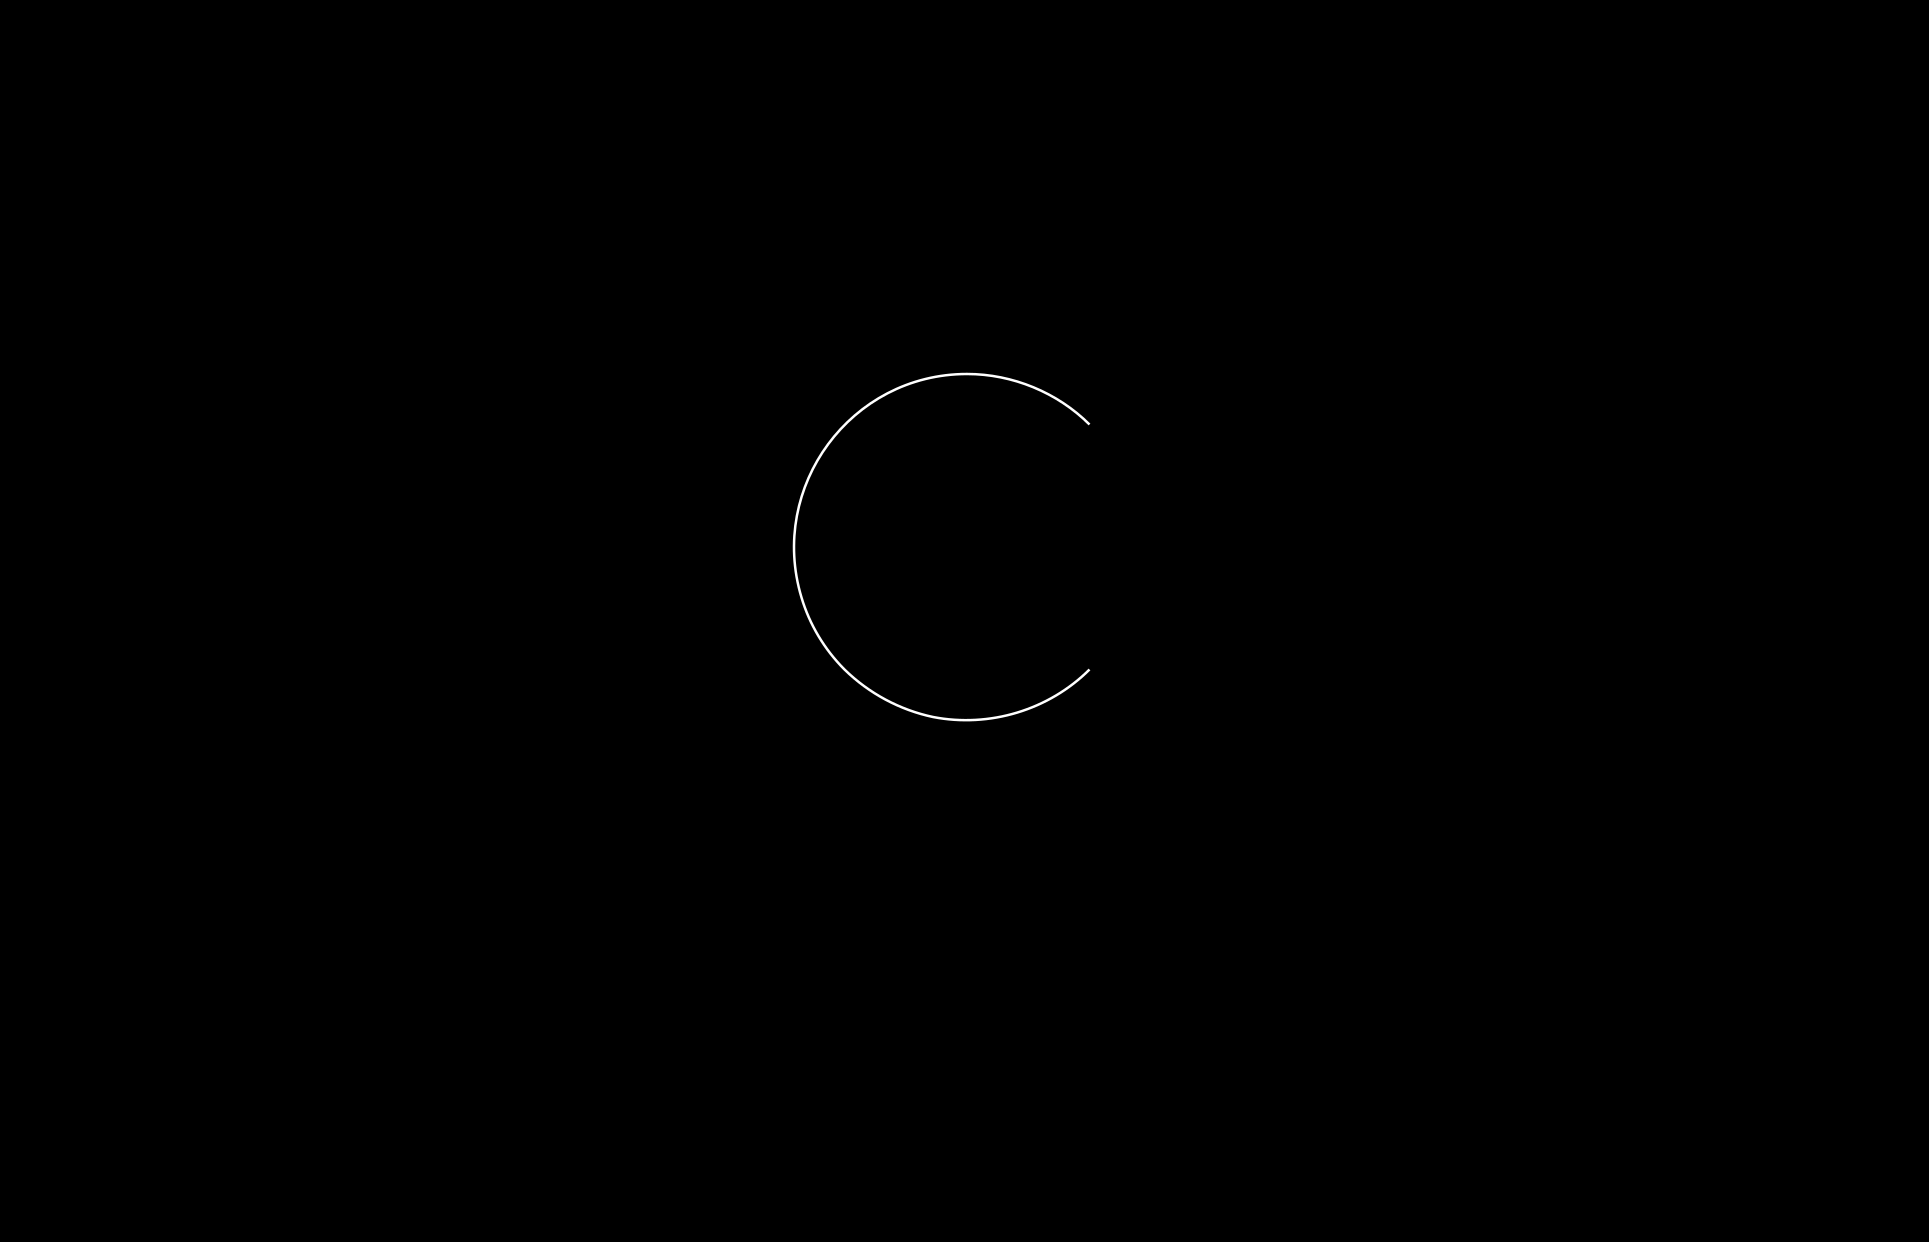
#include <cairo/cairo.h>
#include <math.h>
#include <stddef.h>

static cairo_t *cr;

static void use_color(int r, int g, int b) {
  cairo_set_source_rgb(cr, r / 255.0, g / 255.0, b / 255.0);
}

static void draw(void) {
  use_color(0, 0, 0);
  cairo_paint(cr);
  cairo_new_path(cr);
  cairo_move_to(cr, 1089.5, 669.5);
  cairo_curve_to(cr, 1049, 710, 989.5, 728, 933, 717);
  cairo_curve_to(cr, 900, 710, 869, 693.5, 844.5, 669.5);
  cairo_curve_to(cr, 824.5, 649.5, 809.5, 624.5, 801.5, 597.5);
  cairo_curve_to(cr, 768, 486.5, 851, 374, 967, 374);
  cairo_curve_to(cr, 1012.5, 374, 1057.5, 392.5, 1089.5, 424.5);
  use_color(255, 255, 255);
  cairo_set_line_width(cr, 2.5);
  cairo_stroke(cr);
}

int main(void) {
  cairo_surface_t *surface = cairo_image_surface_create(CAIRO_FORMAT_RGB24, 1929, 1242);
  cr = cairo_create(surface);
  cairo_font_options_t *options = cairo_font_options_create();
  cairo_font_options_set_hint_metrics(options, CAIRO_HINT_METRICS_OFF);
  cairo_font_options_set_hint_style(options, CAIRO_HINT_STYLE_NONE);
  cairo_set_font_options(cr, options);
  cairo_set_miter_limit(cr, 4);
  draw();
  cairo_surface_write_to_png(surface, "out.png");
  cairo_font_options_destroy(options);
  cairo_destroy(cr);
  cairo_surface_destroy(surface);
  return 0;
}
